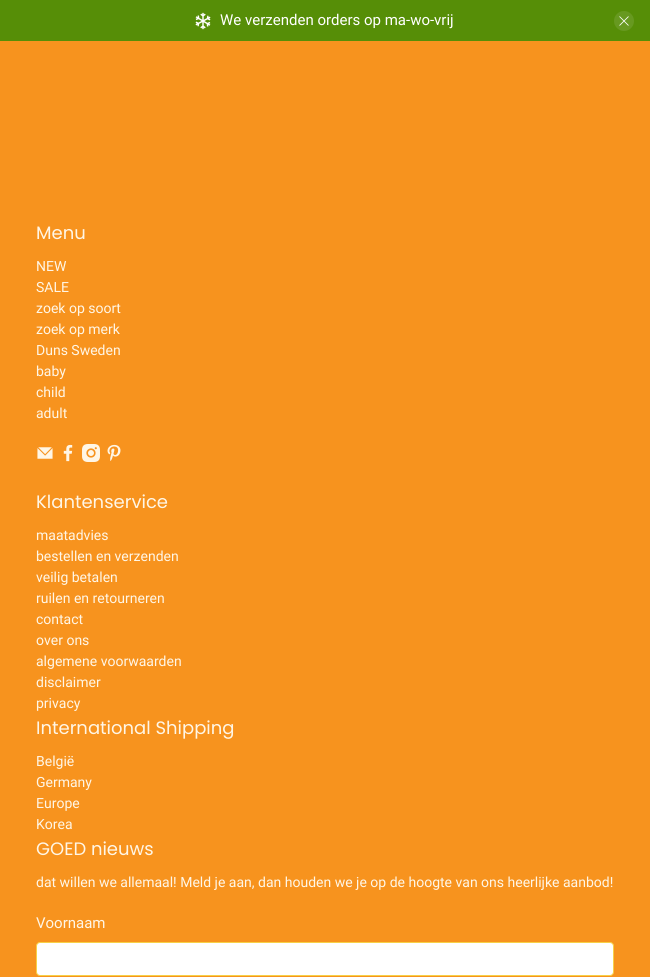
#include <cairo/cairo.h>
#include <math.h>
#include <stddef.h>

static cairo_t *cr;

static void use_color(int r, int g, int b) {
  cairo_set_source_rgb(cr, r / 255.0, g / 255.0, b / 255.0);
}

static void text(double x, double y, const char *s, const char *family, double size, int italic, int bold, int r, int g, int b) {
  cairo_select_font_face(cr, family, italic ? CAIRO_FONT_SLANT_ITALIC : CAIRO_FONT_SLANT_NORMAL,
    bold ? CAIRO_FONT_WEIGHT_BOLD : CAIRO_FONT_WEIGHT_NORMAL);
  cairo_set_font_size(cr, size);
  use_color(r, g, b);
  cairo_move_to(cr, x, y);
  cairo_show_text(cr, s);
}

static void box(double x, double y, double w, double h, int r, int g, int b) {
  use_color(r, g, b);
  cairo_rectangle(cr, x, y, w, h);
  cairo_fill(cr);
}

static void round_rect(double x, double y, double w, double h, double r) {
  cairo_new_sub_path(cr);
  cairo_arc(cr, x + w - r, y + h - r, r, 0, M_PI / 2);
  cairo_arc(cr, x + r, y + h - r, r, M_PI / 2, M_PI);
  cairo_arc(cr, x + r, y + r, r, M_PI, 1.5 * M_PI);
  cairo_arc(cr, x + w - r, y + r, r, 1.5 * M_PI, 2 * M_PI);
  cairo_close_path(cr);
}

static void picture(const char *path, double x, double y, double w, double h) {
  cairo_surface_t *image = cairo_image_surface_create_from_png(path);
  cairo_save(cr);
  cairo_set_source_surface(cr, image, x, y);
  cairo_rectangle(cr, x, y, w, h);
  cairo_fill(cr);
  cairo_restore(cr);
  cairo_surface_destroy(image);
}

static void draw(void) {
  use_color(247, 147, 30);
  cairo_paint(cr);
  box(0, 0, 650, 41, 86, 142, 7);
  picture("img_01.png", 195, 12, 16, 18);
  use_color(103, 153, 32);
  cairo_arc(cr, 624, 21, 10, 0, 2 * M_PI);
  cairo_fill(cr);
  picture("img_02.png", 619, 16, 10, 10);
  picture("img_03.png", 37, 447, 16, 12);
  picture("img_04.png", 63, 444, 10, 18);
  picture("img_05.png", 82, 444, 18, 18);
  picture("img_06.png", 107, 444, 14, 17);
  use_color(255, 255, 255);
  round_rect(36.5, 942.5, 577, 33, 3.5);
  cairo_fill_preserve(cr);
  use_color(247, 209, 71);
  cairo_set_line_width(cr, 1);
  cairo_stroke(cr);
  text(220, 25, "We verzenden orders op ma-wo-vrij", "Roboto", 15, 0, 0, 255, 255, 255);
  text(36, 239, "Menu", "Poppins", 18, 0, 0, 255, 246, 230);
  text(36, 271, "NEW", "Roboto", 14, 0, 0, 255, 246, 230);
  text(36, 292, "SALE", "Roboto", 14, 0, 0, 255, 246, 230);
  text(36, 313, "zoek op soort", "Roboto", 14, 0, 0, 255, 246, 230);
  text(36, 334, "zoek op merk", "Roboto", 14, 0, 0, 255, 246, 230);
  text(36, 355, "Duns Sweden", "Roboto", 14, 0, 0, 255, 246, 230);
  text(36, 376, "baby", "Roboto", 14, 0, 0, 255, 246, 230);
  text(36, 397, "child", "Roboto", 14, 0, 0, 255, 246, 230);
  text(36, 418, "adult", "Roboto", 14, 0, 0, 255, 246, 230);
  text(36, 508, "Klantenservice", "Poppins", 18, 0, 0, 255, 246, 230);
  text(36, 540, "maatadvies", "Roboto", 14, 0, 0, 255, 246, 230);
  text(36, 561, "bestellen en verzenden", "Roboto", 14, 0, 0, 255, 246, 230);
  text(36, 582, "veilig betalen", "Roboto", 14, 0, 0, 255, 246, 230);
  text(36, 603, "ruilen en retourneren", "Roboto", 14, 0, 0, 255, 246, 230);
  text(36, 624, "contact", "Roboto", 14, 0, 0, 255, 246, 230);
  text(36, 645, "over ons", "Roboto", 14, 0, 0, 255, 246, 230);
  text(36, 666, "algemene voorwaarden", "Roboto", 14, 0, 0, 255, 246, 230);
  text(36, 687, "disclaimer", "Roboto", 14, 0, 0, 255, 246, 230);
  text(36, 708, "privacy", "Roboto", 14, 0, 0, 255, 246, 230);
  text(36, 734, "International Shipping", "Poppins", 18, 0, 0, 255, 246, 230);
  text(36, 766, "België", "Roboto", 14, 0, 0, 255, 246, 230);
  text(36, 787, "Germany", "Roboto", 14, 0, 0, 255, 246, 230);
  text(36, 808, "Europe", "Roboto", 14, 0, 0, 255, 246, 230);
  text(36, 829, "Korea", "Roboto", 14, 0, 0, 255, 246, 230);
  text(36, 855, "GOED nieuws", "Poppins", 18, 0, 0, 255, 246, 230);
  text(36, 887, "dat willen we allemaal! Meld je aan, dan houden we je op de hoogte van ons heerlijke aanbod!", "Roboto", 14, 0, 0, 255, 246, 230);
  text(36, 928, "Voornaam", "Roboto", 15, 0, 0, 255, 246, 230);
}

int main(void) {
  cairo_surface_t *surface = cairo_image_surface_create(CAIRO_FORMAT_RGB24, 650, 977);
  cr = cairo_create(surface);
  cairo_font_options_t *options = cairo_font_options_create();
  cairo_font_options_set_hint_metrics(options, CAIRO_HINT_METRICS_OFF);
  cairo_font_options_set_hint_style(options, CAIRO_HINT_STYLE_NONE);
  cairo_set_font_options(cr, options);
  cairo_set_miter_limit(cr, 4);
  draw();
  cairo_surface_write_to_png(surface, "out.png");
  cairo_font_options_destroy(options);
  cairo_destroy(cr);
  cairo_surface_destroy(surface);
  return 0;
}
